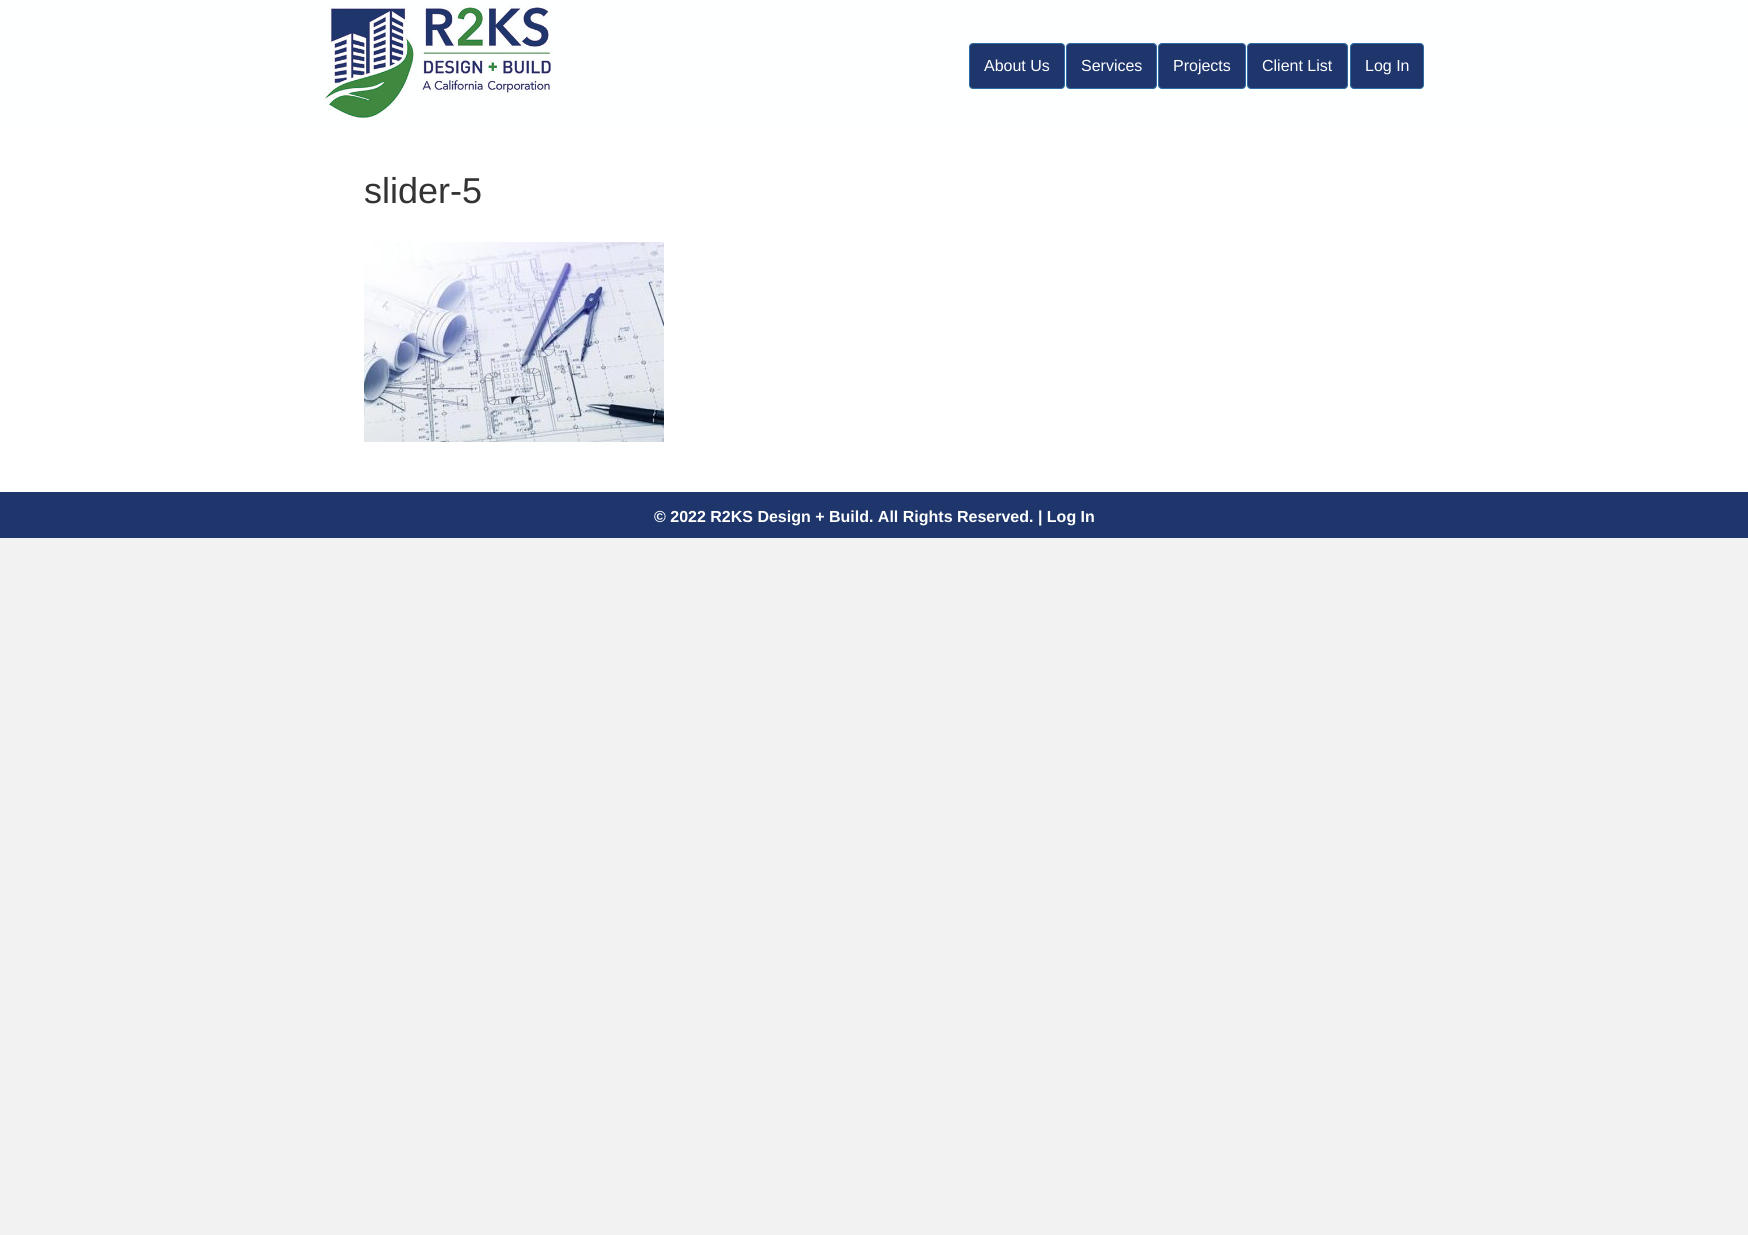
#include <cairo/cairo.h>
#include <math.h>
#include <stddef.h>

static cairo_t *cr;

static void use_color(int r, int g, int b) {
  cairo_set_source_rgb(cr, r / 255.0, g / 255.0, b / 255.0);
}

static void text(double x, double y, const char *s, const char *family, double size, int italic, int bold, int r, int g, int b) {
  cairo_select_font_face(cr, family, italic ? CAIRO_FONT_SLANT_ITALIC : CAIRO_FONT_SLANT_NORMAL,
    bold ? CAIRO_FONT_WEIGHT_BOLD : CAIRO_FONT_WEIGHT_NORMAL);
  cairo_set_font_size(cr, size);
  use_color(r, g, b);
  cairo_move_to(cr, x, y);
  cairo_show_text(cr, s);
}

static void box(double x, double y, double w, double h, int r, int g, int b) {
  use_color(r, g, b);
  cairo_rectangle(cr, x, y, w, h);
  cairo_fill(cr);
}

static void round_rect(double x, double y, double w, double h, double r) {
  cairo_new_sub_path(cr);
  cairo_arc(cr, x + w - r, y + h - r, r, 0, M_PI / 2);
  cairo_arc(cr, x + r, y + h - r, r, M_PI / 2, M_PI);
  cairo_arc(cr, x + r, y + r, r, M_PI, 1.5 * M_PI);
  cairo_arc(cr, x + w - r, y + r, r, 1.5 * M_PI, 2 * M_PI);
  cairo_close_path(cr);
}

static void picture(const char *path, double x, double y, double w, double h) {
  cairo_surface_t *image = cairo_image_surface_create_from_png(path);
  cairo_save(cr);
  cairo_set_source_surface(cr, image, x, y);
  cairo_rectangle(cr, x, y, w, h);
  cairo_fill(cr);
  cairo_restore(cr);
  cairo_surface_destroy(image);
}

static void draw(void) {
  use_color(242, 242, 242);
  cairo_paint(cr);
  box(0, 0, 1748, 126, 254, 255, 255);
  picture("img_01.png", 324, 5, 230, 115);
  use_color(30, 54, 108);
  round_rect(969.5, 43.5, 95, 45, 3.5);
  cairo_fill_preserve(cr);
  use_color(45, 108, 162);
  cairo_set_line_width(cr, 1);
  cairo_stroke(cr);
  use_color(30, 54, 108);
  round_rect(1066.5, 43.5, 90, 45, 3.5);
  cairo_fill_preserve(cr);
  use_color(45, 108, 162);
  cairo_stroke(cr);
  use_color(30, 54, 108);
  round_rect(1158.5, 43.5, 87, 45, 3.5);
  cairo_fill_preserve(cr);
  use_color(45, 108, 162);
  cairo_stroke(cr);
  use_color(30, 54, 108);
  round_rect(1247.5, 43.5, 100, 45, 3.5);
  cairo_fill_preserve(cr);
  use_color(45, 108, 162);
  cairo_stroke(cr);
  use_color(30, 54, 108);
  round_rect(1350.5, 43.5, 73, 45, 3.5);
  cairo_fill_preserve(cr);
  use_color(45, 108, 162);
  cairo_stroke(cr);
  box(0, 126, 1748, 366, 255, 255, 255);
  picture("img_02.png", 364, 242, 300, 200);
  box(0, 492, 1748, 46, 30, 54, 108);
  text(984, 71, "About Us", "Liberation Sans", 16, 0, 0, 255, 255, 255);
  text(1081, 71, "Services", "Liberation Sans", 16, 0, 0, 255, 255, 255);
  text(1173, 71, "Projects", "Liberation Sans", 16, 0, 0, 255, 255, 255);
  text(1262, 71, "Client List", "Liberation Sans", 16, 0, 0, 255, 255, 255);
  text(1365, 71, "Log In", "Liberation Sans", 16, 0, 0, 255, 255, 255);
  text(364, 203, "slider-5", "Liberation Sans", 36, 0, 0, 51, 51, 51);
  text(654, 522, "© 2022 R2KS Design + Build. All Rights Reserved. | Log In", "Liberation Sans", 16, 0, 1, 255, 255, 255);
}

int main(void) {
  cairo_surface_t *surface = cairo_image_surface_create(CAIRO_FORMAT_RGB24, 1748, 1235);
  cr = cairo_create(surface);
  cairo_font_options_t *options = cairo_font_options_create();
  cairo_font_options_set_hint_metrics(options, CAIRO_HINT_METRICS_OFF);
  cairo_font_options_set_hint_style(options, CAIRO_HINT_STYLE_NONE);
  cairo_set_font_options(cr, options);
  cairo_set_miter_limit(cr, 4);
  draw();
  cairo_surface_write_to_png(surface, "out.png");
  cairo_font_options_destroy(options);
  cairo_destroy(cr);
  cairo_surface_destroy(surface);
  return 0;
}
